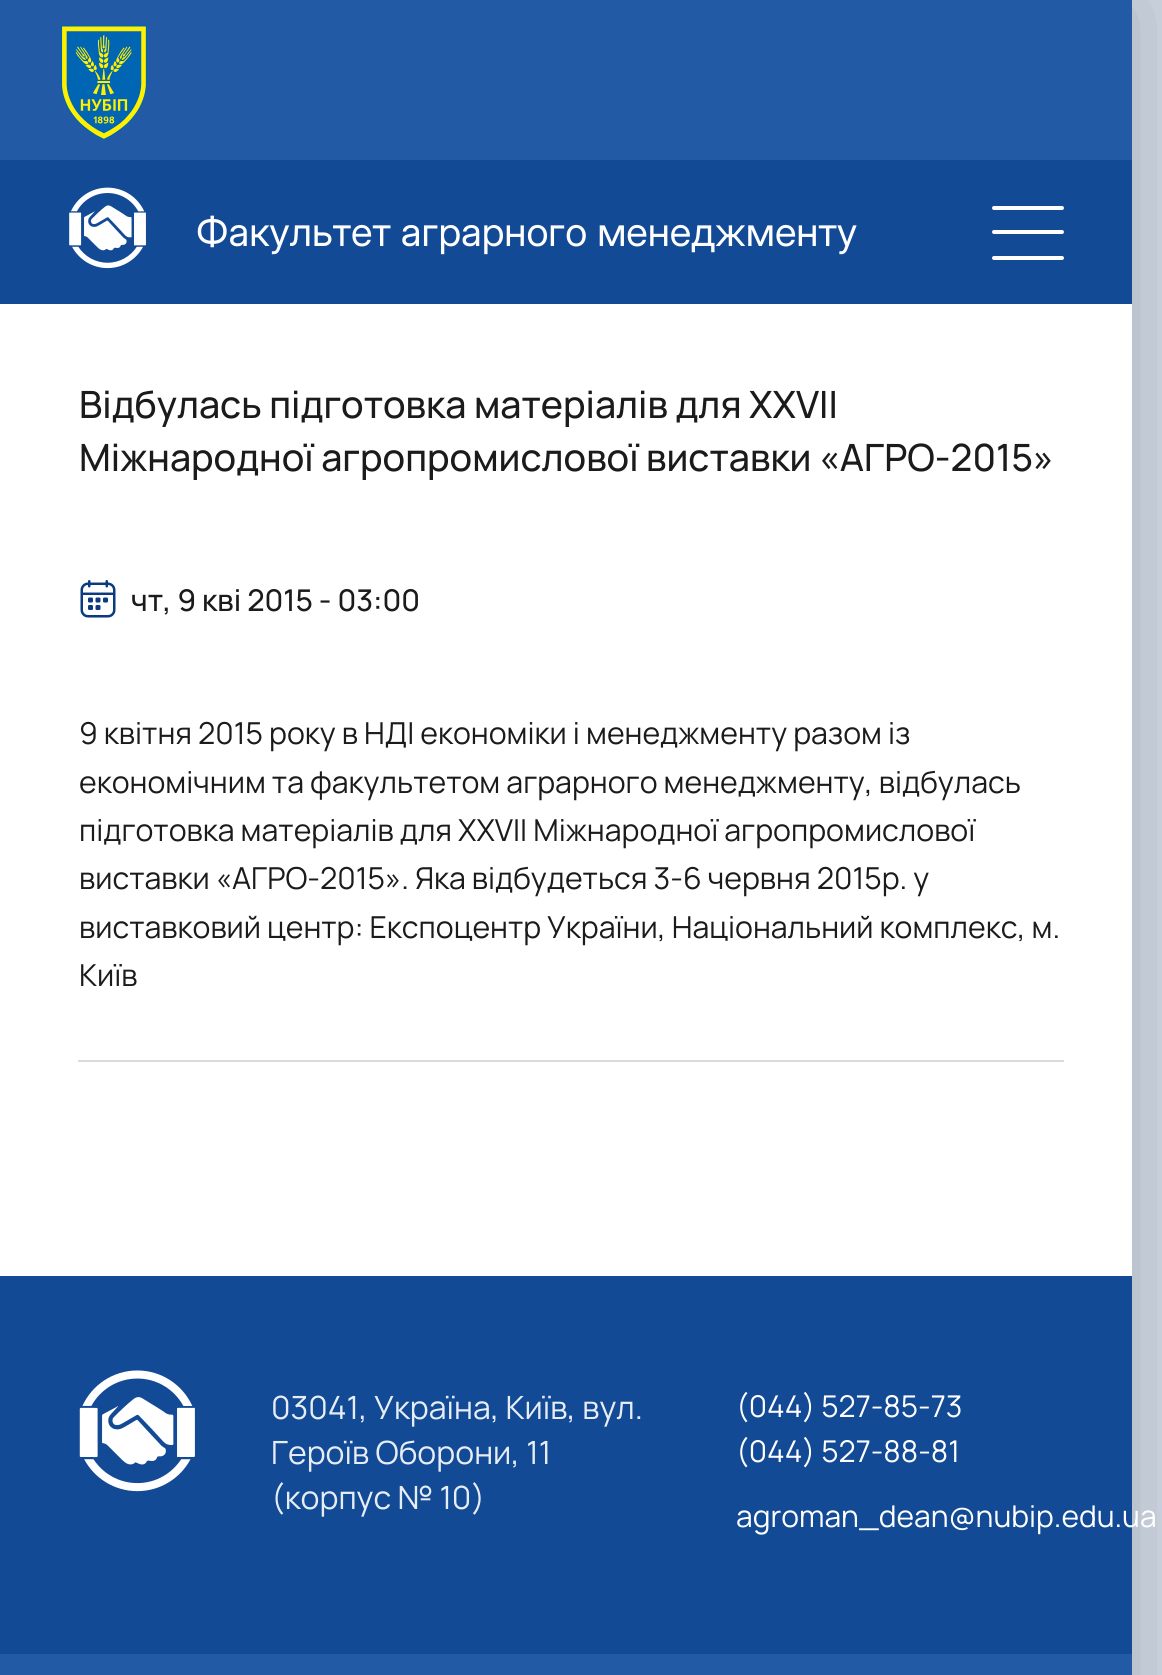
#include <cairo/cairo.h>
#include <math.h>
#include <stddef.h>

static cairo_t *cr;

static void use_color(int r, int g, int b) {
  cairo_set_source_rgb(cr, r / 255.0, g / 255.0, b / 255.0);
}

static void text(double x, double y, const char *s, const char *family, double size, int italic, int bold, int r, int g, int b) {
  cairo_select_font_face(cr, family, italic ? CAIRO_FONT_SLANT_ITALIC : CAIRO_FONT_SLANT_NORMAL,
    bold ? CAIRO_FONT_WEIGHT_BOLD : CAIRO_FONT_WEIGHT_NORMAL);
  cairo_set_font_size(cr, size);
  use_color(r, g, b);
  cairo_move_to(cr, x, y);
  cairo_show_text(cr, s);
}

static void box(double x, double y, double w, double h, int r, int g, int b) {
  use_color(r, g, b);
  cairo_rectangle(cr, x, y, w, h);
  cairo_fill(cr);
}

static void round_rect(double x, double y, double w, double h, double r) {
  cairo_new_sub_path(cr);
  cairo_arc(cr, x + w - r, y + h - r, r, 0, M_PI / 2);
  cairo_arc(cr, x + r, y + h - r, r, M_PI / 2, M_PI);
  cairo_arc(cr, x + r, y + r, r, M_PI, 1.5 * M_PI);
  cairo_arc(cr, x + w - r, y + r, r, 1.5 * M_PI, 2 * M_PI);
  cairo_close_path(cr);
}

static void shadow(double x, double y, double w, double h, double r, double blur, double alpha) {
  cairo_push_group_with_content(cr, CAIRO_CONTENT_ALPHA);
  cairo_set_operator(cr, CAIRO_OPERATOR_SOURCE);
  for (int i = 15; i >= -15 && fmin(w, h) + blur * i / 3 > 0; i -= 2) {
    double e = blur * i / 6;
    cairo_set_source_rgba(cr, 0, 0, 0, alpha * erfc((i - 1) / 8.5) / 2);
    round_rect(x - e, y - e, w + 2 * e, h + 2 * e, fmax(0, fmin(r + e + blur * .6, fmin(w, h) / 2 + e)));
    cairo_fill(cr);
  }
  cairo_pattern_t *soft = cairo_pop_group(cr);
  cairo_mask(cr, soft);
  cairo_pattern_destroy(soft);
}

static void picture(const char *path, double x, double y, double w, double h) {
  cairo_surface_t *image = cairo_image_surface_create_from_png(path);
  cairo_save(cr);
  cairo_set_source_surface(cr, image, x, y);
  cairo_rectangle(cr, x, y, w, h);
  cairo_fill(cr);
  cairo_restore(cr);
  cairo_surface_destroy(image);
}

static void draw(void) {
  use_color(208, 217, 229);
  cairo_paint(cr);
  use_color(0, 0, 0);
  shadow(0, 0, 1132, 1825, 0, 50, 0.2);
  box(0, 0, 1132, 160, 35, 90, 166);
  picture("img_01.png", 60, 24, 88, 117);
  box(0, 304, 1132, 972, 255, 255, 255);
  box(0, 160, 1132, 144, 19, 74, 150);
  picture("img_02.png", 69, 187, 77, 82);
  use_color(255, 255, 255);
  round_rect(992, 206, 72, 4, 2);
  cairo_fill(cr);
  round_rect(992, 230, 72, 4, 2);
  cairo_fill(cr);
  round_rect(992, 256, 72, 4, 2);
  cairo_fill(cr);
  picture("img_03.png", 80, 580, 36, 38);
  box(78, 1060, 986, 2, 219, 219, 219);
  box(0, 1276, 1132, 378, 19, 74, 150);
  picture("img_04.png", 79, 1370, 116, 122);
  box(0, 1654, 1132, 21, 35, 90, 166);
  text(196, 246, "Факультет аграрного менеджменту", "Inter Display", 40, 0, 0, 255, 255, 255);
  text(79, 418, "Відбулась підготовка матеріалів для XXVII", "Manrope Medium", 37.6, 0, 0, 27, 27, 27);
  text(79, 471, "Міжнародної агропромислової виставки «АГРО-2015»", "Manrope Medium", 37.6, 0, 0, 27, 27, 27);
  text(131, 611, "чт, 9 кві 2015 - 03:00", "Manrope Medium", 30, 0, 0, 27, 27, 27);
  text(79, 744, "9 квітня 2015 року в НДІ економіки і менеджменту разом із", "Manrope", 30.25, 0, 0, 27, 27, 27);
  text(79, 793, "економічним та факультетом аграрного менеджменту, відбулась", "Manrope", 30.25, 0, 0, 27, 27, 27);
  text(79, 841, "підготовка матеріалів для XXVII Міжнародної агропромислової", "Manrope", 30.25, 0, 0, 27, 27, 27);
  text(79, 889, "виставки «АГРО-2015». Яка відбудеться 3-6 червня 2015р. у", "Manrope", 30.25, 0, 0, 27, 27, 27);
  text(79, 938, "виставковий центр: Експоцентр", "Manrope", 30.25, 0, 0, 27, 27, 27);
  text(547, 938, "України, Національний комплекс, м.", "Manrope", 30.25, 0, 0, 27, 27, 27);
  text(79, 986, "Київ", "Manrope", 30.25, 0, 0, 27, 27, 27);
  text(271, 1419, "03041, Україна, Київ, вул.", "Manrope", 32, 0, 0, 231, 237, 245);
  text(271, 1464, "Героїв Оборони, 11", "Manrope", 32, 0, 0, 231, 237, 245);
  text(271, 1509, "(корпус № 10)", "Manrope", 32, 0, 0, 231, 237, 245);
  text(736, 1417, "(044) 527-85-73", "Manrope", 30, 0, 0, 255, 255, 255);
  text(736, 1462, "(044) 527-88-81", "Manrope", 30, 0, 0, 255, 255, 255);
  text(736, 1527, "agroman_dean@nubip.edu.ua", "Manrope", 30, 0, 0, 255, 255, 255);
}

int main(void) {
  cairo_surface_t *surface = cairo_image_surface_create(CAIRO_FORMAT_RGB24, 1162, 1675);
  cr = cairo_create(surface);
  cairo_font_options_t *options = cairo_font_options_create();
  cairo_font_options_set_hint_metrics(options, CAIRO_HINT_METRICS_OFF);
  cairo_font_options_set_hint_style(options, CAIRO_HINT_STYLE_NONE);
  cairo_set_font_options(cr, options);
  cairo_set_miter_limit(cr, 4);
  draw();
  cairo_surface_write_to_png(surface, "out.png");
  cairo_font_options_destroy(options);
  cairo_destroy(cr);
  cairo_surface_destroy(surface);
  return 0;
}
